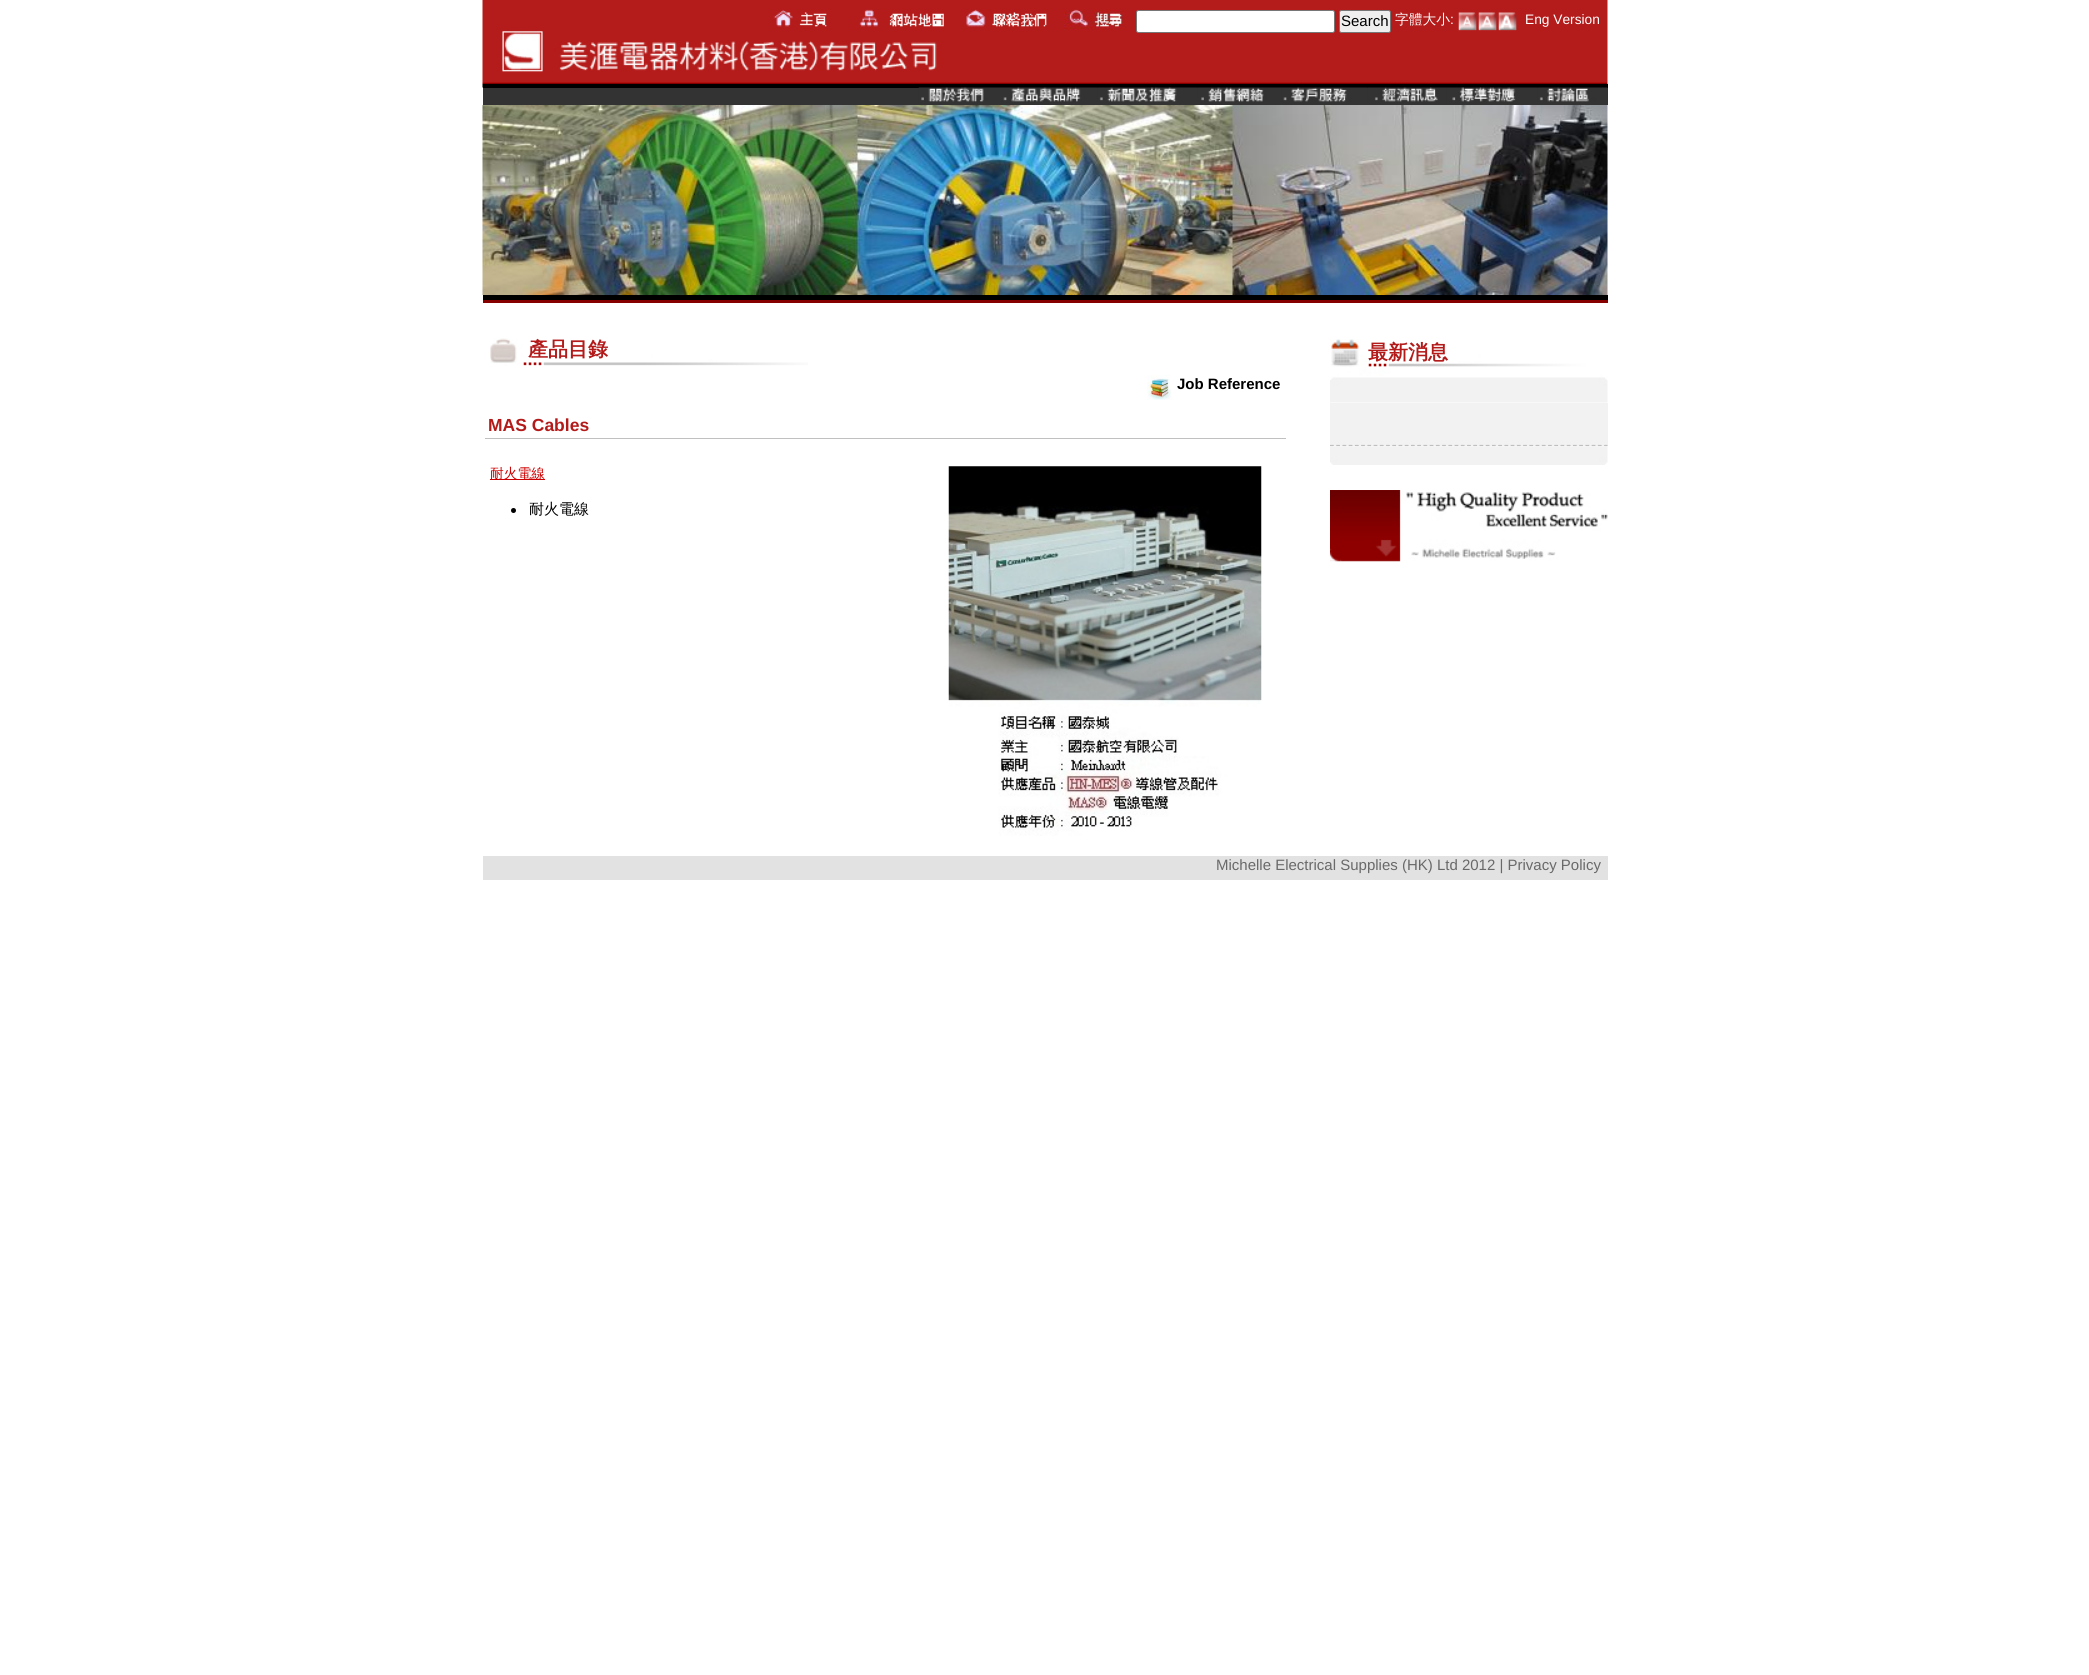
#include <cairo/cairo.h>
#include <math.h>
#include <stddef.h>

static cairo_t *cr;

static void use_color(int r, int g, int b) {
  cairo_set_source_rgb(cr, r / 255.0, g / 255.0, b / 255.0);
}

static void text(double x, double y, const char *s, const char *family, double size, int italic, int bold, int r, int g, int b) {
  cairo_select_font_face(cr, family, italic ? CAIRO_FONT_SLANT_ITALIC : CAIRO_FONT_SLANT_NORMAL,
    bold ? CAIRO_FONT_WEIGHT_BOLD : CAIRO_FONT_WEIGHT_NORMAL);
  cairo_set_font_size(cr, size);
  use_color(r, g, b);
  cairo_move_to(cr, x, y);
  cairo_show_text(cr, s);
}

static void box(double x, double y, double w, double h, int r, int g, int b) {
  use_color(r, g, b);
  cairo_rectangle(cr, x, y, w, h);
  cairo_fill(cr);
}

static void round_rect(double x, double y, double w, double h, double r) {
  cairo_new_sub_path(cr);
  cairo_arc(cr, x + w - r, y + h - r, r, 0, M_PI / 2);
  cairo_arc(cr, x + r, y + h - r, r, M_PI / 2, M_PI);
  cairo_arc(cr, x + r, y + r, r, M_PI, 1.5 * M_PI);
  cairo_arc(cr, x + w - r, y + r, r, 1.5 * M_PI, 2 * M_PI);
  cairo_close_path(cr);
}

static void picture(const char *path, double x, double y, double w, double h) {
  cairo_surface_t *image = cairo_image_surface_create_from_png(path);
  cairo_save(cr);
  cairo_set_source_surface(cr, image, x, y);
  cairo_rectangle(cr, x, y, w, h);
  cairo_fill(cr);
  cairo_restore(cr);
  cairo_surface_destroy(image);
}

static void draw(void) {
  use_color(255, 255, 255);
  cairo_paint(cr);
  box(483, 300, 1125, 3, 134, 0, 0);
  picture("img_01.png", 482, 0, 1126, 88);
  box(483, 84, 1125, 4, 0, 0, 0);
  picture("img_02.png", 771, 10, 56, 32);
  picture("img_03.png", 859, 9, 85, 18);
  picture("img_04.png", 966, 9, 81, 18);
  picture("img_05.png", 1064, 9, 60, 21);
  use_color(255, 255, 255);
  round_rect(1136.5, 10.5, 198, 22, 2);
  cairo_fill_preserve(cr);
  use_color(118, 118, 118);
  cairo_set_line_width(cr, 1);
  cairo_stroke(cr);
  use_color(239, 239, 239);
  round_rect(1339.5, 10.5, 51, 22, 2);
  cairo_fill_preserve(cr);
  use_color(118, 118, 118);
  cairo_stroke(cr);
  picture("img_06.png", 1458, 12, 19, 19);
  picture("img_07.png", 1478, 12, 19, 19);
  picture("img_08.png", 1498, 12, 19, 19);
  box(483, 88, 1125, 17, 51, 51, 51);
  picture("img_09.png", 918, 87, 82, 15);
  picture("img_10.png", 1000, 87, 98, 15);
  picture("img_11.png", 1097, 87, 101, 15);
  picture("img_12.png", 1197, 87, 85, 15);
  picture("img_13.png", 1281, 87, 87, 15);
  picture("img_14.png", 1367, 87, 80, 15);
  picture("img_15.png", 1446, 87, 92, 15);
  picture("img_16.png", 1537, 87, 71, 15);
  box(483, 295, 1125, 5, 0, 0, 0);
  picture("img_17.png", 482, 105, 1126, 190);
  picture("img_18.png", 490, 338, 318, 28);
  picture("img_19.png", 1147, 375, 25, 25);
  box(485, 438, 801, 1, 192, 192, 192);
  box(490, 479, 55, 1, 204, 0, 0);
  use_color(0, 0, 0);
  cairo_arc(cr, 513.5, 510.5, 2.5, 0, 2 * M_PI);
  cairo_fill(cr);
  picture("img_20.png", 948, 466, 314, 370);
  picture("img_21.png", 1330, 339, 278, 64);
  box(1330, 403, 278, 43, 242, 242, 242);
  cairo_new_path(cr);
  cairo_move_to(cr, 1330, 445.5);
  cairo_line_to(cr, 1607.5, 445.5);
  use_color(191, 191, 191);
  cairo_set_line_width(cr, 1.2);
  cairo_set_dash(cr, (double[]){3.75, 2.48}, 2, 0);
  cairo_stroke(cr);
  picture("img_22.png", 1330, 446, 278, 19);
  picture("img_23.png", 1330, 490, 278, 72);
  box(483, 856, 1125, 24, 226, 226, 226);
  text(1341, 26, "Search", "Liberation Sans", 15, 0, 0, 0, 0, 0);
  text(1395, 24, "字體大小", "WenQuanYi Zen Hei Medium", 13.75, 0, 0, 255, 255, 255);
  text(1450, 24, ":", "Liberation Sans", 13.75, 0, 0, 255, 255, 255);
  text(1525, 24, "Eng Version", "Liberation Sans", 13.75, 0, 0, 255, 255, 255);
  text(528, 356, "產品目錄", "WenQuanYi Zen Hei", 20, 0, 1, 179, 27, 27);
  text(1177, 389, "Job Reference", "Liberation Sans", 15, 0, 1, 0, 0, 0);
  text(488, 431, "MAS Cables", "Liberation Sans", 17.5, 0, 1, 179, 27, 27);
  text(490, 478, "耐火電線", "WenQuanYi Zen Hei Medium", 13.75, 0, 0, 204, 0, 0);
  text(529, 514, "耐火電線", "WenQuanYi Zen Hei Medium", 15, 0, 0, 0, 0, 0);
  text(1368, 359, "最新消息", "WenQuanYi Zen Hei", 20, 0, 1, 179, 27, 27);
  text(1216, 870, "Michelle Electrical Supplies (HK) Ltd 2012 | Privacy Policy", "Liberation Sans", 15, 0, 0, 105, 105, 105);
}

int main(void) {
  cairo_surface_t *surface = cairo_image_surface_create(CAIRO_FORMAT_RGB24, 2089, 1675);
  cr = cairo_create(surface);
  cairo_font_options_t *options = cairo_font_options_create();
  cairo_font_options_set_hint_metrics(options, CAIRO_HINT_METRICS_OFF);
  cairo_font_options_set_hint_style(options, CAIRO_HINT_STYLE_NONE);
  cairo_set_font_options(cr, options);
  cairo_set_miter_limit(cr, 4);
  draw();
  cairo_surface_write_to_png(surface, "out.png");
  cairo_font_options_destroy(options);
  cairo_destroy(cr);
  cairo_surface_destroy(surface);
  return 0;
}
